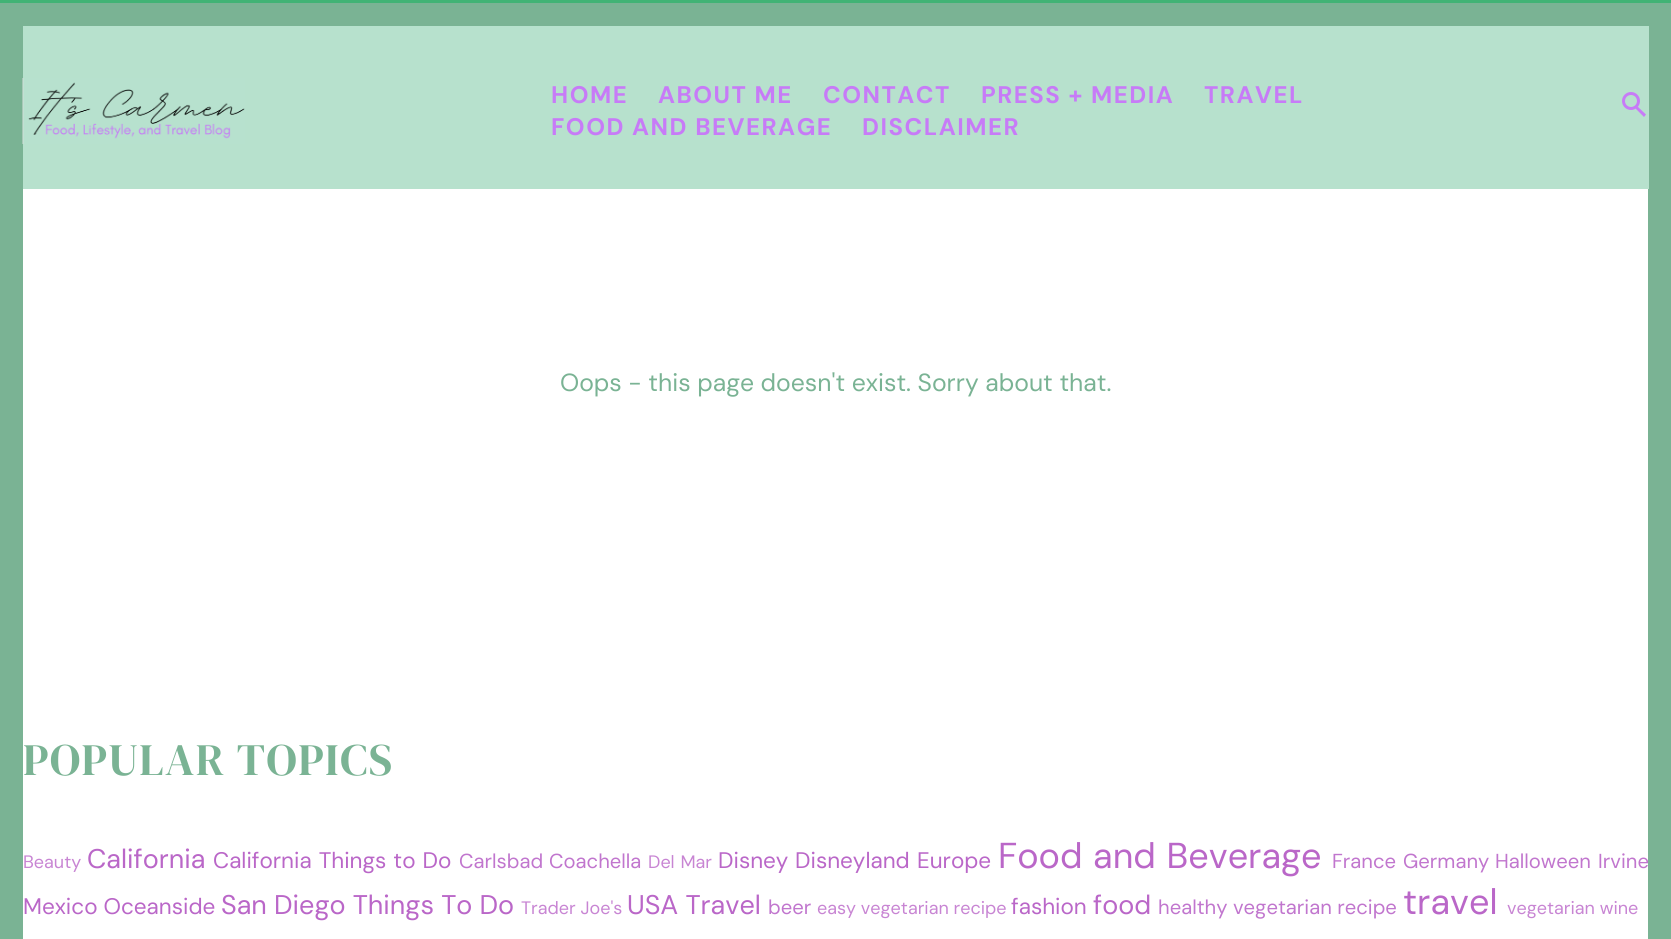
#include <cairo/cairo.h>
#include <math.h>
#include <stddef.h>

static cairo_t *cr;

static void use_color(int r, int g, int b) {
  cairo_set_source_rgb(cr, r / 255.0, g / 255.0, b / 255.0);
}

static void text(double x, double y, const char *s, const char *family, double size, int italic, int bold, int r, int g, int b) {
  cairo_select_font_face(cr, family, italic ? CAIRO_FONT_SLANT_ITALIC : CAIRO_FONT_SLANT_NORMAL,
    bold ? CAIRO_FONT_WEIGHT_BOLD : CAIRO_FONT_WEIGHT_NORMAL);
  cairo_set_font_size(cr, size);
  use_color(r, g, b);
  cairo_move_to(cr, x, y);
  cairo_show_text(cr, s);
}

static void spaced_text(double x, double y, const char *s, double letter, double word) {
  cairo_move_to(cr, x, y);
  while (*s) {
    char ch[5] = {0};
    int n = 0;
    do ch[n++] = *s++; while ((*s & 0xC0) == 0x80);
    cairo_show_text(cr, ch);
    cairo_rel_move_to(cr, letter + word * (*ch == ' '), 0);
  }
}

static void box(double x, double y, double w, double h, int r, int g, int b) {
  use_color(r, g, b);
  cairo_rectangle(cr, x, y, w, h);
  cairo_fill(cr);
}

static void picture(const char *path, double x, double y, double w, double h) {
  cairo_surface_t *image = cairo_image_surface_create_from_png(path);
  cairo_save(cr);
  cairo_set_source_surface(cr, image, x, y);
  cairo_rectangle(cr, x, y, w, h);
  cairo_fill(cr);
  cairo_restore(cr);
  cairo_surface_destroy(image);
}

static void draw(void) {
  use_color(255, 255, 255);
  cairo_paint(cr);
  box(0, 0, 1671, 3, 65, 179, 117);
  cairo_rectangle(cr, 11.5, 14.5, 1648, 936);
  use_color(122, 179, 148);
  cairo_set_line_width(cr, 23);
  cairo_stroke(cr);
  box(23, 26, 1626, 163, 183, 225, 205);
  picture("img_01.png", 22, 78, 223, 66);
  use_color(199, 123, 247);
  cairo_new_path(cr);
  cairo_move_to(cr, 1635.5, 108.5);
  cairo_line_to(cr, 1637.5, 106.5);
  cairo_line_to(cr, 1646, 114.5);
  cairo_line_to(cr, 1644, 117);
  cairo_close_path(cr);
  cairo_fill(cr);
  cairo_arc(cr, 1631, 101, 7.5, 0, 2 * M_PI);
  cairo_set_line_width(cr, 3);
  cairo_stroke(cr);
  cairo_select_font_face(cr, "DM Sans", CAIRO_FONT_SLANT_NORMAL, CAIRO_FONT_WEIGHT_BOLD);
  cairo_set_font_size(cr, 24);
  spaced_text(551, 103, "HOME", 1.5, 0);
  spaced_text(658, 103, "ABOUT ME", 1.5, 0);
  spaced_text(823, 103, "CONTACT", 1.5, 0);
  spaced_text(981, 103, "PRESS + MEDIA", 1.5, 0);
  spaced_text(1204, 103, "TRAVEL", 1.5, 0);
  spaced_text(551, 135, "FOOD AND BEVERAGE", 1.5, 0);
  spaced_text(862, 135, "DISCLAIMER", 1.5, 0);
  text(560, 391, "Oops - this page doesn't exist. Sorry about that.", "DM Sans", 24.75, 0, 0, 122, 179, 148);
  cairo_select_font_face(cr, "DM Serif Display", CAIRO_FONT_SLANT_NORMAL, CAIRO_FONT_WEIGHT_NORMAL);
  cairo_set_font_size(cr, 45);
  spaced_text(23, 775, "POPULAR TOPICS", 1.5, 0);
  text(23, 868, "Beauty", "DM Sans", 18, 0, 0, 200, 133, 211);
  text(87, 868, "California", "DM Sans", 27, 0, 0, 186, 103, 200);
  cairo_set_font_size(cr, 22.5);
  spaced_text(213, 868, "California Things to Do", 0, 1);
  text(459, 868, "Carlsbad", "DM Sans", 20.25, 0, 0, 193, 118, 206);
  text(549, 868, "Coachella", "DM Sans", 20.25, 0, 0, 193, 118, 206);
  cairo_set_font_size(cr, 18);
  use_color(200, 133, 211);
  spaced_text(648, 868, "Del Mar", 0, 1);
  text(718, 868, "Disney", "DM Sans", 22.5, 0, 0, 186, 103, 200);
  text(795, 868, "Disneyland", "DM Sans", 22.5, 0, 0, 186, 103, 200);
  text(917, 868, "Europe", "DM Sans", 22.5, 0, 0, 186, 103, 200);
  cairo_set_font_size(cr, 36);
  spaced_text(998, 868, "Food and Beverage", 0, 1);
  text(1332, 868, "France", "DM Sans", 20.25, 0, 0, 193, 118, 206);
  text(1403, 868, "Germany", "DM Sans", 20.25, 0, 0, 193, 118, 206);
  text(1495, 868, "Halloween", "DM Sans", 20.25, 0, 0, 193, 118, 206);
  text(1598, 868, "Irvine", "DM Sans", 20.25, 0, 0, 193, 118, 206);
  text(23, 914, "Mexico Oceanside", "DM Sans", 22.5, 0, 0, 186, 103, 200);
  text(221, 914, "San Diego Things To Do", "DM Sans", 27, 0, 0, 186, 103, 200);
  text(521, 914, "Trader Joe's", "DM Sans", 18, 0, 0, 200, 133, 211);
  text(627, 914, "USA Travel", "DM Sans", 27, 0, 0, 186, 103, 200);
  text(768, 914, "beer", "DM Sans", 20.25, 0, 0, 193, 118, 206);
  text(817, 914, "easy vegetarian recipe", "DM Sans", 18, 0, 0, 200, 133, 211);
  text(1011, 914, "fashion", "DM Sans", 22.5, 0, 0, 186, 103, 200);
  text(1093, 914, "food", "DM Sans", 27, 0, 0, 186, 103, 200);
  text(1158, 914, "healthy vegetarian recipe", "DM Sans", 20.25, 0, 0, 193, 118, 206);
  text(1403, 914, "travel", "DM Sans", 36, 0, 0, 186, 103, 200);
  text(1507, 914, "vegetarian wine", "DM Sans", 18, 0, 0, 200, 133, 211);
}

int main(void) {
  cairo_surface_t *surface = cairo_image_surface_create(CAIRO_FORMAT_RGB24, 1671, 939);
  cr = cairo_create(surface);
  cairo_font_options_t *options = cairo_font_options_create();
  cairo_font_options_set_hint_metrics(options, CAIRO_HINT_METRICS_OFF);
  cairo_font_options_set_hint_style(options, CAIRO_HINT_STYLE_NONE);
  cairo_set_font_options(cr, options);
  cairo_set_miter_limit(cr, 4);
  draw();
  cairo_surface_write_to_png(surface, "out.png");
  cairo_font_options_destroy(options);
  cairo_destroy(cr);
  cairo_surface_destroy(surface);
  return 0;
}
